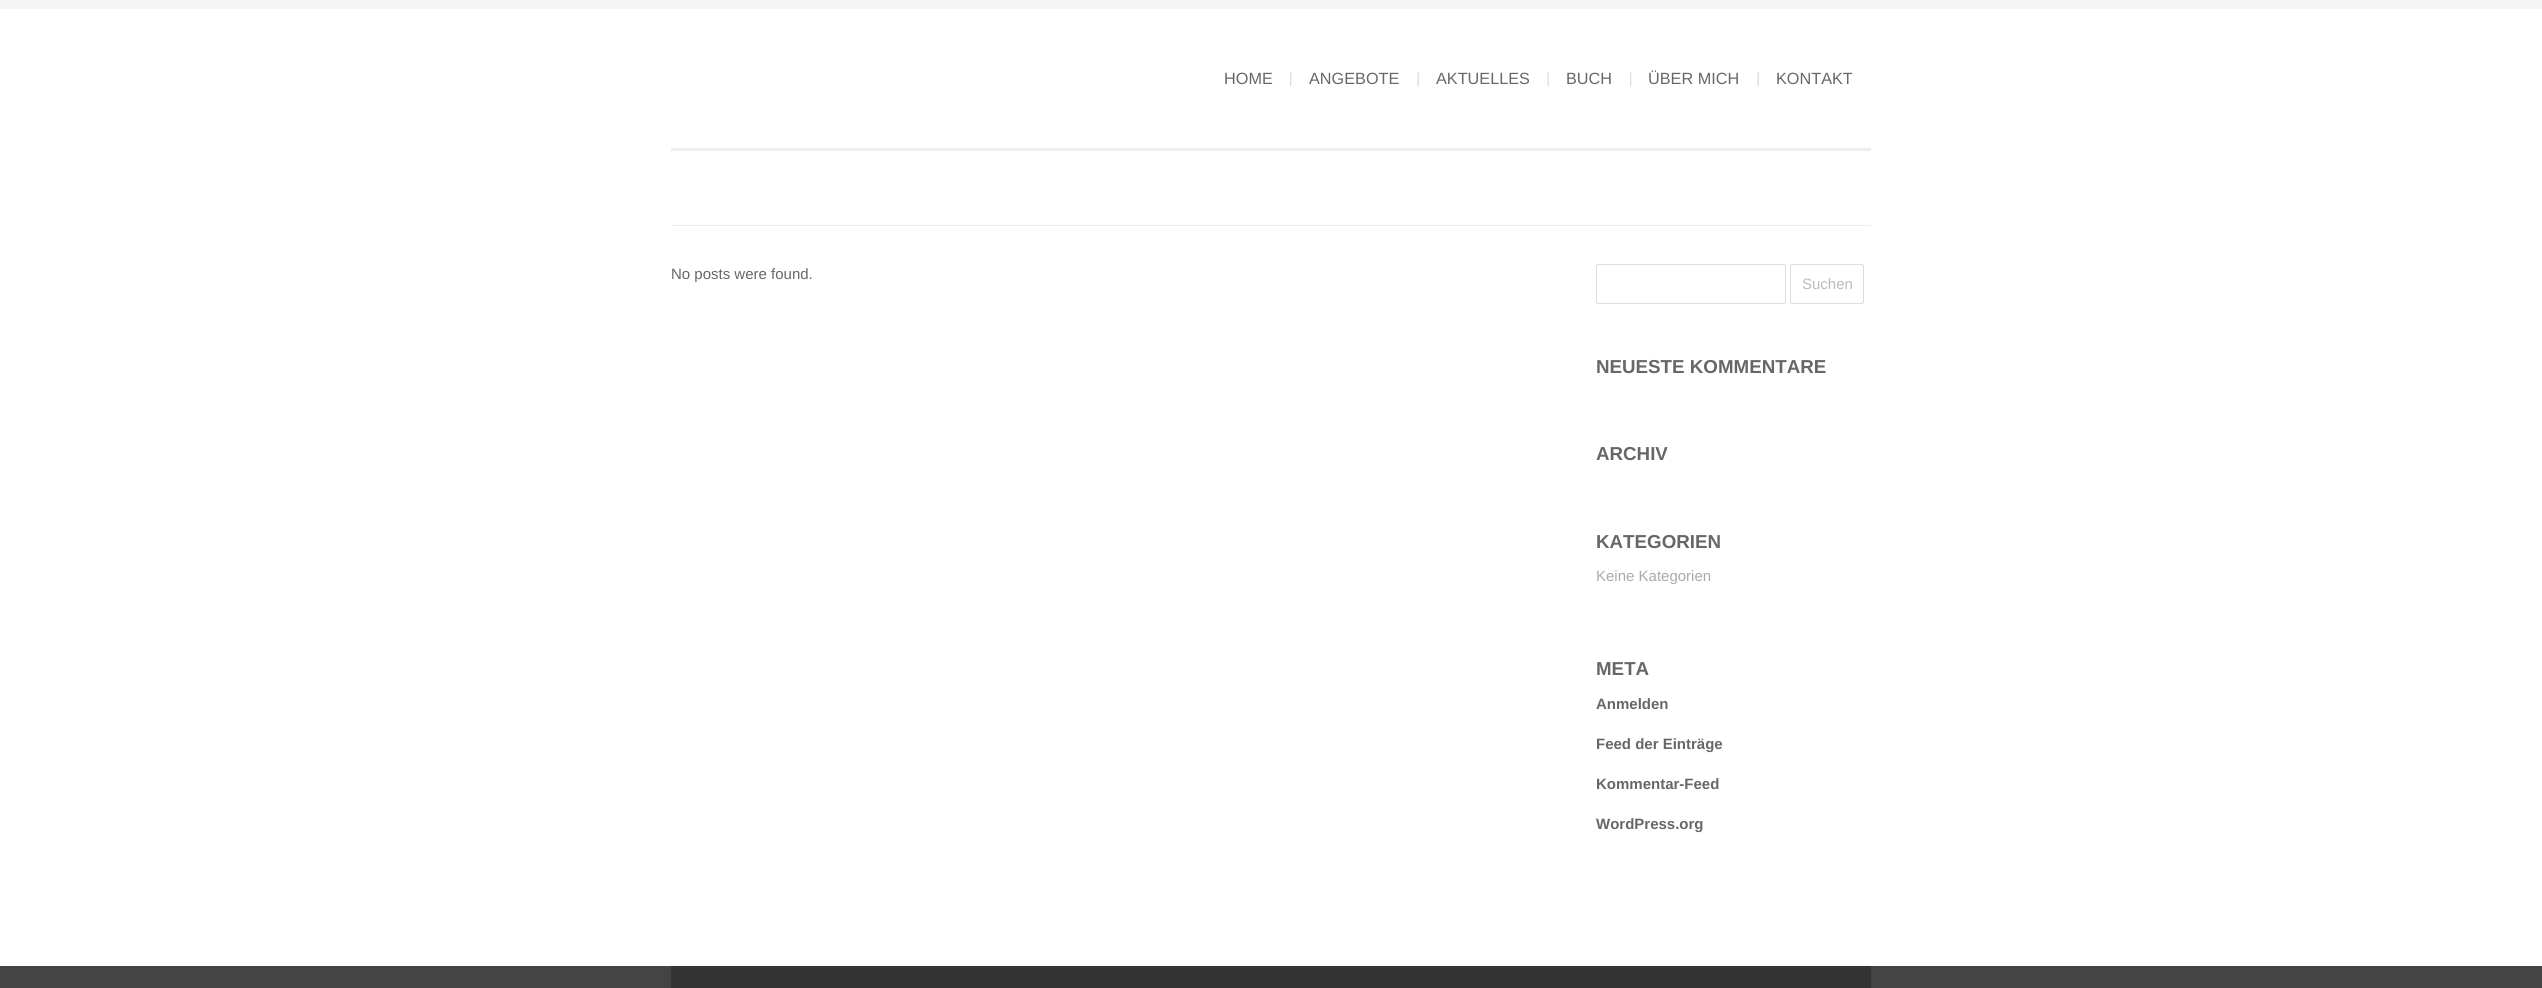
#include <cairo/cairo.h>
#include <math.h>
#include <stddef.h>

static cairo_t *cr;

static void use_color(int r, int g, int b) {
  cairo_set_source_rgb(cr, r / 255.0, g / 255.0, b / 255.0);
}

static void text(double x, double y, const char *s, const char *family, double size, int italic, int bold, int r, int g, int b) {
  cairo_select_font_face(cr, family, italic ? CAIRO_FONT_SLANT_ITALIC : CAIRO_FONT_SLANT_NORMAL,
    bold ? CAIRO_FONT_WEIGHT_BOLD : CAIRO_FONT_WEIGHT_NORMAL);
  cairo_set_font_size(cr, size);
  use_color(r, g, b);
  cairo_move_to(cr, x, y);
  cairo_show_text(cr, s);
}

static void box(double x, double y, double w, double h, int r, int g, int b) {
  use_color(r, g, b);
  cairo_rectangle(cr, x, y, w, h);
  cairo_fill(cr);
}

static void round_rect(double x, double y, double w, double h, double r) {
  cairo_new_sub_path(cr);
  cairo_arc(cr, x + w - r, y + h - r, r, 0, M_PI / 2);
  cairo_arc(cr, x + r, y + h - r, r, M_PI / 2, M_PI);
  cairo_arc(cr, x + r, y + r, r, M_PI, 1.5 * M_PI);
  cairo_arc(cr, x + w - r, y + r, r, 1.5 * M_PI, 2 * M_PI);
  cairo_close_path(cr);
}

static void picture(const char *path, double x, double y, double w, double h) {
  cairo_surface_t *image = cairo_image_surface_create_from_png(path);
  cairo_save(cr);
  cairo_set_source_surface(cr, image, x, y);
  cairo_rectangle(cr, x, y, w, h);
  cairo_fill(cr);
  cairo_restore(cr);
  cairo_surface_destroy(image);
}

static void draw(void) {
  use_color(255, 255, 255);
  cairo_paint(cr);
  box(0, 0, 2542, 9, 245, 245, 245);
  picture("img_01.png", 1290, 72, 2, 15);
  picture("img_02.png", 1417, 72, 2, 15);
  picture("img_03.png", 1547, 72, 2, 15);
  picture("img_01.png", 1630, 72, 2, 15);
  picture("img_02.png", 1757, 72, 2, 15);
  box(671, 148, 1200, 3, 238, 238, 238);
  box(671, 225, 1200, 1, 238, 238, 238);
  round_rect(1596.5, 264.5, 189, 39, 2);
  use_color(221, 221, 221);
  cairo_set_line_width(cr, 1);
  cairo_stroke(cr);
  round_rect(1790.5, 264.5, 73, 39, 2);
  cairo_stroke(cr);
  box(0, 966, 2542, 22, 68, 68, 68);
  box(671, 966, 1200, 22, 51, 51, 51);
  text(1224, 84, "HOME", "Liberation Sans", 16.25, 0, 0, 103, 103, 103);
  text(1309, 84, "ANGEBOTE", "Liberation Sans", 16.25, 0, 0, 103, 103, 103);
  text(1436, 84, "AKTUELLES", "Liberation Sans", 16.25, 0, 0, 103, 103, 103);
  text(1566, 84, "BUCH", "Liberation Sans", 16.25, 0, 0, 103, 103, 103);
  text(1648, 84, "ÜBER MICH", "Liberation Sans", 16.25, 0, 0, 103, 103, 103);
  text(1776, 84, "KONTAKT", "Liberation Sans", 16.25, 0, 0, 103, 103, 103);
  text(671, 279, "No posts were found.", "Liberation Sans", 15, 0, 0, 103, 103, 103);
  text(1802, 289, "Suchen", "Liberation Sans", 15, 0, 0, 187, 187, 187);
  text(1596, 373, "NEUESTE KOMMENTARE", "Liberation Sans", 18.75, 0, 1, 103, 103, 103);
  text(1596, 460, "ARCHIV", "Liberation Sans", 18.75, 0, 1, 103, 103, 103);
  text(1596, 548, "KATEGORIEN", "Liberation Sans", 18.75, 0, 1, 103, 103, 103);
  text(1596, 581, "Keine Kategorien", "Liberation Sans", 15, 0, 0, 170, 170, 170);
  text(1596, 675, "META", "Liberation Sans", 18.75, 0, 1, 103, 103, 103);
  text(1596, 709, "Anmelden", "Liberation Sans", 15, 0, 1, 103, 103, 103);
  text(1596, 749, "Feed der Einträge", "Liberation Sans", 15, 0, 1, 103, 103, 103);
  text(1596, 789, "Kommentar-Feed", "Liberation Sans", 15, 0, 1, 103, 103, 103);
  text(1596, 829, "WordPress.org", "Liberation Sans", 15, 0, 1, 103, 103, 103);
}

int main(void) {
  cairo_surface_t *surface = cairo_image_surface_create(CAIRO_FORMAT_RGB24, 2542, 988);
  cr = cairo_create(surface);
  cairo_font_options_t *options = cairo_font_options_create();
  cairo_font_options_set_hint_metrics(options, CAIRO_HINT_METRICS_OFF);
  cairo_font_options_set_hint_style(options, CAIRO_HINT_STYLE_NONE);
  cairo_set_font_options(cr, options);
  cairo_set_miter_limit(cr, 4);
  draw();
  cairo_surface_write_to_png(surface, "out.png");
  cairo_font_options_destroy(options);
  cairo_destroy(cr);
  cairo_surface_destroy(surface);
  return 0;
}
